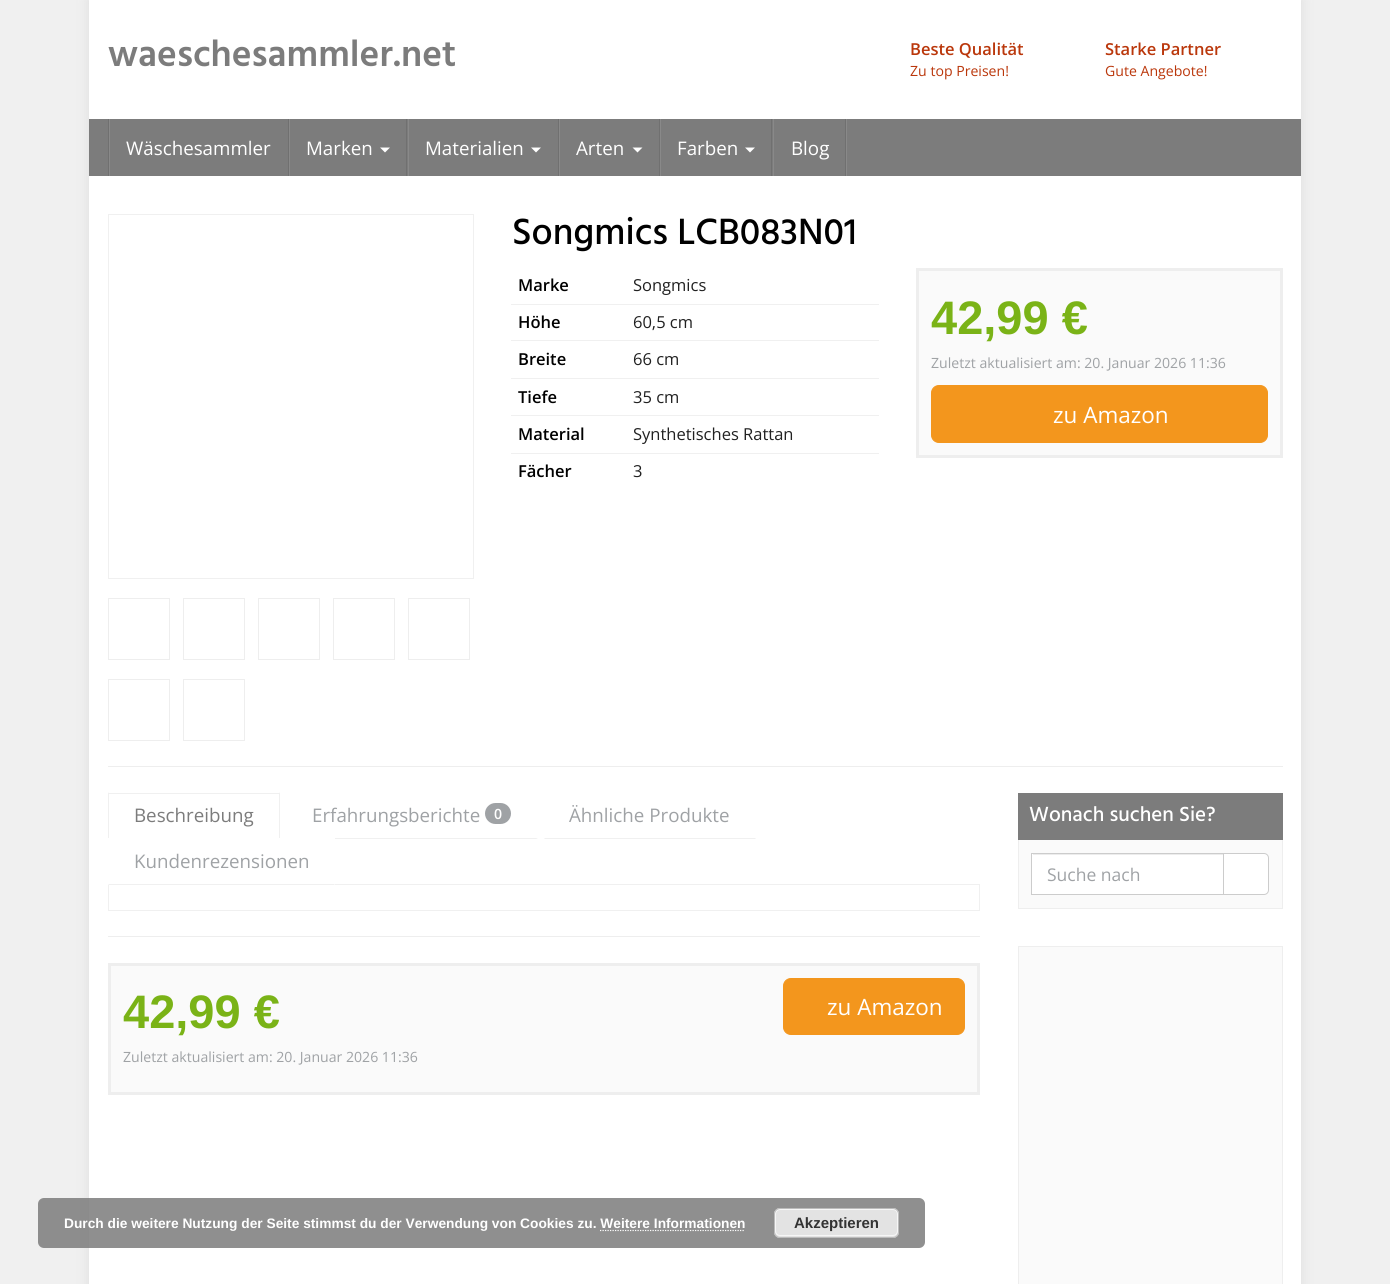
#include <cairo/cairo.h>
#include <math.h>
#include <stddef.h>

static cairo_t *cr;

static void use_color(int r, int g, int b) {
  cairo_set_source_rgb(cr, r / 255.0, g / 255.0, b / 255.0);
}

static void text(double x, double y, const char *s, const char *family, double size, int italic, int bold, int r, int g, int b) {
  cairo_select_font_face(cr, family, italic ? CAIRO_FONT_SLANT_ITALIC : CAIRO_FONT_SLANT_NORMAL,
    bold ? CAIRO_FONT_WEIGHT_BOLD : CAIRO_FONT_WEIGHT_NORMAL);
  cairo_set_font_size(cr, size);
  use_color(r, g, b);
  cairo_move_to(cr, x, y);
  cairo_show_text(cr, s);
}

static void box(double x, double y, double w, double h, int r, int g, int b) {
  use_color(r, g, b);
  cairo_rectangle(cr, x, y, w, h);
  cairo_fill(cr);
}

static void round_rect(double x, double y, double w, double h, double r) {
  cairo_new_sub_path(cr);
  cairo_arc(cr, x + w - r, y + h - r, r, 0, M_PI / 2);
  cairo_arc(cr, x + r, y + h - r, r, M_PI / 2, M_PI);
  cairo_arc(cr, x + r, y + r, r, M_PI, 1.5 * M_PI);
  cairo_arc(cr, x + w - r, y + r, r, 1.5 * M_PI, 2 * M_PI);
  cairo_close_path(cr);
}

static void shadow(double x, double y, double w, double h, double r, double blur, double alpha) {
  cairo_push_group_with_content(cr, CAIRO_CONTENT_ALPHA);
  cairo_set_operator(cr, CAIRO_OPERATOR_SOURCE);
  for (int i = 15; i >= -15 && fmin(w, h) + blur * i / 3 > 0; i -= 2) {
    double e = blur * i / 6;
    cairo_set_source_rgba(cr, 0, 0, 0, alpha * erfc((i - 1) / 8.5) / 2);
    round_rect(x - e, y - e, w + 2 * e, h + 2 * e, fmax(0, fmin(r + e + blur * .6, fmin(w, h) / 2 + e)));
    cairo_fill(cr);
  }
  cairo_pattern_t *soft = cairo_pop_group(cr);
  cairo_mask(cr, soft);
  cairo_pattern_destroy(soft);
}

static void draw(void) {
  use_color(240, 240, 240);
  cairo_paint(cr);
  use_color(221, 221, 221);
  shadow(89, 0, 1212, 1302, 0, 6, 1);
  box(89, 0, 1212, 1284, 255, 255, 255);
  box(89, 119, 1212, 57, 124, 124, 124);
  box(846, 119, 1, 57, 137, 137, 137);
  box(108, 119, 1, 57, 112, 112, 112);
  box(288, 119, 1, 57, 112, 112, 112);
  box(109, 119, 1, 57, 137, 137, 137);
  box(406, 119, 1, 57, 112, 112, 112);
  box(289, 119, 1, 57, 137, 137, 137);
  use_color(255, 255, 255);
  cairo_new_path(cr);
  cairo_move_to(cr, 380, 147.5);
  cairo_line_to(cr, 390, 147.5);
  cairo_line_to(cr, 385, 152.5);
  cairo_close_path(cr);
  cairo_fill(cr);
  box(558, 119, 1, 57, 112, 112, 112);
  box(408, 119, 1, 57, 137, 137, 137);
  use_color(255, 255, 255);
  cairo_new_path(cr);
  cairo_move_to(cr, 531, 147.5);
  cairo_line_to(cr, 541, 147.5);
  cairo_line_to(cr, 536, 152.5);
  cairo_close_path(cr);
  cairo_fill(cr);
  box(659, 119, 1, 57, 112, 112, 112);
  box(559, 119, 1, 57, 137, 137, 137);
  use_color(255, 255, 255);
  cairo_new_path(cr);
  cairo_move_to(cr, 632.5, 147.5);
  cairo_line_to(cr, 642.5, 147.5);
  cairo_line_to(cr, 637.5, 152.5);
  cairo_close_path(cr);
  cairo_fill(cr);
  box(771, 119, 1, 57, 112, 112, 112);
  box(660, 119, 1, 57, 137, 137, 137);
  use_color(255, 255, 255);
  cairo_new_path(cr);
  cairo_move_to(cr, 745, 147.5);
  cairo_line_to(cr, 755, 147.5);
  cairo_line_to(cr, 750, 152.5);
  cairo_close_path(cr);
  cairo_fill(cr);
  box(845, 119, 1, 57, 112, 112, 112);
  box(773, 119, 1, 57, 137, 137, 137);
  cairo_rectangle(cr, 108.5, 214.5, 365, 364);
  use_color(240, 240, 240);
  cairo_set_line_width(cr, 1);
  cairo_stroke(cr);
  cairo_rectangle(cr, 108.5, 598.5, 61, 61);
  use_color(238, 238, 238);
  cairo_stroke(cr);
  cairo_rectangle(cr, 183.5, 598.5, 61, 61);
  cairo_stroke(cr);
  cairo_rectangle(cr, 258.5, 598.5, 61, 61);
  cairo_stroke(cr);
  cairo_rectangle(cr, 333.5, 598.5, 61, 61);
  cairo_stroke(cr);
  cairo_rectangle(cr, 408.5, 598.5, 61, 61);
  cairo_stroke(cr);
  cairo_rectangle(cr, 108.5, 679.5, 61, 61);
  cairo_stroke(cr);
  cairo_rectangle(cr, 183.5, 679.5, 61, 61);
  cairo_stroke(cr);
  box(511, 304, 368, 1, 240, 240, 240);
  box(511, 340, 368, 1, 240, 240, 240);
  box(511, 378, 368, 1, 240, 240, 240);
  box(511, 415, 368, 1, 240, 240, 240);
  box(511, 453, 368, 1, 240, 240, 240);
  use_color(250, 250, 250);
  cairo_rectangle(cr, 917.5, 269.5, 364, 187);
  cairo_fill_preserve(cr);
  use_color(238, 238, 238);
  cairo_set_line_width(cr, 3);
  cairo_stroke(cr);
  use_color(243, 150, 29);
  round_rect(931.5, 385.5, 336, 57, 7.5);
  cairo_fill_preserve(cr);
  cairo_set_line_width(cr, 1);
  cairo_stroke(cr);
  box(108, 766, 1175, 1, 238, 238, 238);
  box(335, 884, 645, 1, 240, 240, 240);
  box(108, 793, 172, 1, 240, 240, 240);
  cairo_new_path(cr);
  cairo_move_to(cr, 280, 792);
  cairo_line_to(cr, 280, 839);
  cairo_line_to(cr, 279, 838);
  cairo_line_to(cr, 279, 794);
  cairo_close_path(cr);
  cairo_fill(cr);
  cairo_new_path(cr);
  cairo_move_to(cr, 108, 839);
  cairo_line_to(cr, 108, 792);
  cairo_line_to(cr, 109, 794);
  cairo_line_to(cr, 109, 838);
  cairo_close_path(cr);
  cairo_fill(cr);
  cairo_new_path(cr);
  cairo_move_to(cr, 538, 839);
  cairo_line_to(cr, 286, 839);
  cairo_line_to(cr, 288, 838);
  cairo_line_to(cr, 536, 838);
  cairo_close_path(cr);
  cairo_fill(cr);
  use_color(159, 162, 165);
  round_rect(485, 803, 26, 21, 10.5);
  cairo_fill(cr);
  use_color(240, 240, 240);
  cairo_new_path(cr);
  cairo_move_to(cr, 756, 839);
  cairo_line_to(cr, 544, 839);
  cairo_line_to(cr, 545, 838);
  cairo_line_to(cr, 755, 838);
  cairo_close_path(cr);
  cairo_fill(cr);
  box(108, 838, 227, 1, 255, 255, 255);
  use_color(240, 240, 240);
  cairo_new_path(cr);
  cairo_move_to(cr, 335, 885);
  cairo_line_to(cr, 108, 885);
  cairo_line_to(cr, 109, 884);
  cairo_line_to(cr, 334, 884);
  cairo_close_path(cr);
  cairo_fill(cr);
  box(979, 885, 1, 26, 240, 240, 240);
  box(108, 910, 872, 1, 240, 240, 240);
  box(108, 885, 1, 26, 240, 240, 240);
  box(108, 936, 872, 1, 238, 238, 238);
  use_color(250, 250, 250);
  cairo_rectangle(cr, 109.5, 964.5, 869, 129);
  cairo_fill_preserve(cr);
  use_color(238, 238, 238);
  cairo_set_line_width(cr, 3);
  cairo_stroke(cr);
  use_color(243, 150, 29);
  round_rect(783.5, 978.5, 181, 56, 7.5);
  cairo_fill_preserve(cr);
  cairo_set_line_width(cr, 1);
  cairo_stroke(cr);
  box(1019, 840, 263, 68, 250, 250, 250);
  cairo_rectangle(cr, 1018.5, 793.5, 264, 115);
  use_color(238, 238, 238);
  cairo_stroke(cr);
  box(1018, 793, 265, 47, 124, 124, 124);
  box(1032, 854, 191, 40, 255, 255, 255);
  box(1033, 854, 190, 1, 236, 236, 236);
  cairo_rectangle(cr, 1031.5, 853.5, 192, 41);
  use_color(204, 204, 204);
  cairo_stroke(cr);
  use_color(255, 255, 255);
  cairo_new_path(cr);
  cairo_move_to(cr, 1223.5, 853.5);
  cairo_line_to(cr, 1264, 853.5);
  cairo_curve_to(cr, 1266.5, 853.5, 1268.5, 855.5, 1268.5, 858);
  cairo_line_to(cr, 1268.5, 890);
  cairo_curve_to(cr, 1268.5, 892.5, 1266.5, 894.5, 1264, 894.5);
  cairo_line_to(cr, 1223.5, 894.5);
  cairo_close_path(cr);
  cairo_fill_preserve(cr);
  use_color(204, 204, 204);
  cairo_stroke(cr);
  use_color(250, 250, 250);
  cairo_rectangle(cr, 1018.5, 946.5, 264, 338);
  cairo_fill_preserve(cr);
  use_color(238, 238, 238);
  cairo_stroke(cr);
  cairo_set_source_rgba(cr, 0.486, 0.486, 0.486, 0.85);
  round_rect(38, 1198, 887, 50, 6);
  cairo_fill(cr);
  use_color(227, 227, 227);
  round_rect(774, 1208, 125, 30, 6);
  cairo_fill(cr);
  round_rect(775.5, 1209.5, 122, 26, 4.5);
  use_color(246, 246, 246);
  cairo_stroke(cr);
  round_rect(774.5, 1208.5, 124, 29, 5.5);
  use_color(187, 187, 187);
  cairo_stroke(cr);
  cairo_new_path(cr);
  cairo_move_to(cr, 600, 1230.5);
  cairo_line_to(cr, 745, 1230.5);
  use_color(255, 255, 255);
  cairo_set_line_width(cr, 1.2);
  cairo_set_dash(cr, (double[]){1.25, 1.25}, 2, 0);
  cairo_stroke(cr);
  text(108, 66, "waeschesammler.net", "Hind SemiBold", 37.5, 0, 0, 124, 124, 124);
  text(910, 55, "Beste Qualität", "Open Sans SemiBold", 16.5, 0, 0, 186, 55, 11);
  text(910, 76, "Zu top Preisen!", "Open Sans", 14.1, 0, 0, 186, 55, 11);
  text(1105, 55, "Starke Partner", "Open Sans SemiBold", 16.5, 0, 0, 186, 55, 11);
  text(1105, 76, "Gute Angebote!", "Open Sans", 14.1, 0, 0, 186, 55, 11);
  text(126, 155, "Wäschesammler", "Open Sans", 18.75, 0, 0, 255, 255, 255);
  text(306, 155, "Marken", "Open Sans", 18.75, 0, 0, 255, 255, 255);
  text(425, 155, "Materialien", "Open Sans", 18.75, 0, 0, 255, 255, 255);
  text(576, 155, "Arten", "Open Sans", 18.75, 0, 0, 255, 255, 255);
  text(677, 155, "Farben", "Open Sans", 18.75, 0, 0, 255, 255, 255);
  text(791, 155, "Blog", "Open Sans", 18.75, 0, 0, 255, 255, 255);
  text(512, 244, "Songmics LCB083N01", "Hind Medium", 37.5, 0, 0, 0, 0, 0);
  text(518, 291, "Marke", "Open Sans SemiBold", 16.5, 0, 0, 0, 0, 0);
  text(633, 291, "Songmics", "Open Sans", 16.5, 0, 0, 33, 33, 33);
  text(518, 328, "Höhe", "Open Sans SemiBold", 16.5, 0, 0, 0, 0, 0);
  text(633, 328, "60,5 cm", "Open Sans", 16.5, 0, 0, 33, 33, 33);
  text(518, 365, "Breite", "Open Sans SemiBold", 16.5, 0, 0, 0, 0, 0);
  text(633, 365, "66 cm", "Open Sans", 16.5, 0, 0, 33, 33, 33);
  text(518, 403, "Tiefe", "Open Sans SemiBold", 16.5, 0, 0, 0, 0, 0);
  text(633, 403, "35 cm", "Open Sans", 16.5, 0, 0, 33, 33, 33);
  text(518, 440, "Material", "Open Sans SemiBold", 16.5, 0, 0, 0, 0, 0);
  text(633, 440, "Synthetisches Rattan", "Open Sans", 16.5, 0, 0, 33, 33, 33);
  text(518, 477, "Fächer", "Open Sans SemiBold", 16.5, 0, 0, 0, 0, 0);
  text(633, 477, "3", "Open Sans", 16.5, 0, 0, 33, 33, 33);
  text(931, 334, "42,99 €", "Liberation Sans", 47, 0, 1, 122, 179, 23);
  text(931, 368, "Zuletzt aktualisiert am: 20. Januar 2026 11:36", "Open Sans", 14.1, 0, 0, 159, 162, 165);
  text(1053, 423, "zu Amazon", "Open Sans", 22.5, 0, 0, 255, 255, 255);
  text(134, 822, "Beschreibung", "Open Sans", 18.75, 0, 0, 124, 124, 124);
  text(312, 822, "Erfahrungsberichte", "Open Sans", 18.75, 0, 0, 159, 162, 165);
  text(494, 819, "0", "Open Sans SemiBold", 14.1, 0, 0, 255, 255, 255);
  text(569, 822, "Ähnliche Produkte", "Open Sans", 18.75, 0, 0, 159, 162, 165);
  text(134, 868, "Kundenrezensionen", "Open Sans", 18.75, 0, 0, 159, 162, 165);
  text(123, 1028, "42,99 €", "Liberation Sans", 47, 0, 1, 122, 179, 23);
  text(123, 1062, "Zuletzt aktualisiert am: 20. Januar 2026 11:36", "Open Sans", 14.1, 0, 0, 159, 162, 165);
  text(827, 1015, "zu Amazon", "Open Sans", 22.5, 0, 0, 255, 255, 255);
  text(1029, 821, "Wonach suchen Sie?", "Hind Medium", 21, 0, 0, 255, 255, 255);
  text(1047, 881, "Suche nach", "Open Sans", 17.5, 0, 0, 159, 162, 165);
  text(64, 1228, "Durch die weitere Nutzung der Seite stimmst du der Verwendung von Cookies zu. Weitere Informationen", "Liberation Sans", 13.75, 0, 1, 255, 255, 255);
  text(794, 1228, "Akzeptieren", "Liberation Sans", 15, 0, 1, 51, 51, 51);
}

int main(void) {
  cairo_surface_t *surface = cairo_image_surface_create(CAIRO_FORMAT_RGB24, 1390, 1284);
  cr = cairo_create(surface);
  cairo_font_options_t *options = cairo_font_options_create();
  cairo_font_options_set_hint_metrics(options, CAIRO_HINT_METRICS_OFF);
  cairo_font_options_set_hint_style(options, CAIRO_HINT_STYLE_NONE);
  cairo_set_font_options(cr, options);
  cairo_set_miter_limit(cr, 4);
  draw();
  cairo_surface_write_to_png(surface, "out.png");
  cairo_font_options_destroy(options);
  cairo_destroy(cr);
  cairo_surface_destroy(surface);
  return 0;
}
